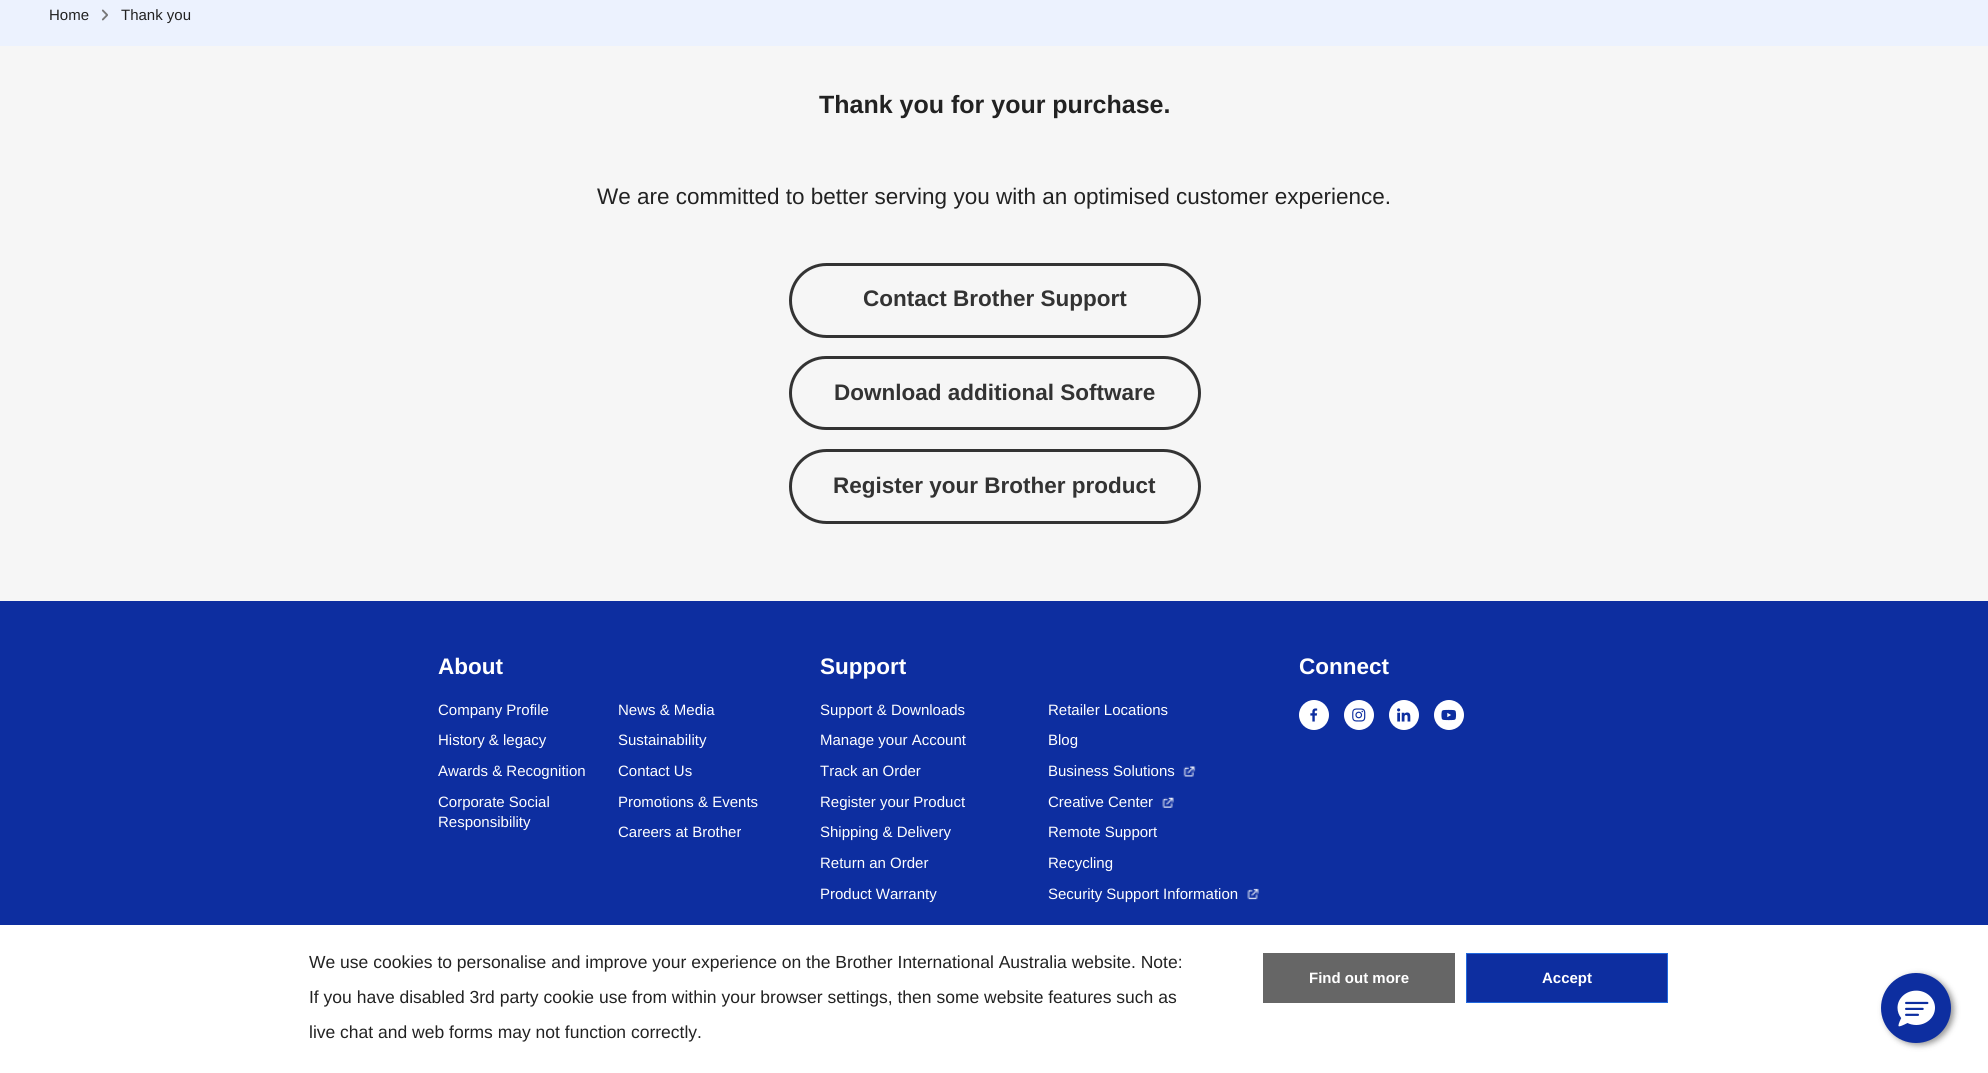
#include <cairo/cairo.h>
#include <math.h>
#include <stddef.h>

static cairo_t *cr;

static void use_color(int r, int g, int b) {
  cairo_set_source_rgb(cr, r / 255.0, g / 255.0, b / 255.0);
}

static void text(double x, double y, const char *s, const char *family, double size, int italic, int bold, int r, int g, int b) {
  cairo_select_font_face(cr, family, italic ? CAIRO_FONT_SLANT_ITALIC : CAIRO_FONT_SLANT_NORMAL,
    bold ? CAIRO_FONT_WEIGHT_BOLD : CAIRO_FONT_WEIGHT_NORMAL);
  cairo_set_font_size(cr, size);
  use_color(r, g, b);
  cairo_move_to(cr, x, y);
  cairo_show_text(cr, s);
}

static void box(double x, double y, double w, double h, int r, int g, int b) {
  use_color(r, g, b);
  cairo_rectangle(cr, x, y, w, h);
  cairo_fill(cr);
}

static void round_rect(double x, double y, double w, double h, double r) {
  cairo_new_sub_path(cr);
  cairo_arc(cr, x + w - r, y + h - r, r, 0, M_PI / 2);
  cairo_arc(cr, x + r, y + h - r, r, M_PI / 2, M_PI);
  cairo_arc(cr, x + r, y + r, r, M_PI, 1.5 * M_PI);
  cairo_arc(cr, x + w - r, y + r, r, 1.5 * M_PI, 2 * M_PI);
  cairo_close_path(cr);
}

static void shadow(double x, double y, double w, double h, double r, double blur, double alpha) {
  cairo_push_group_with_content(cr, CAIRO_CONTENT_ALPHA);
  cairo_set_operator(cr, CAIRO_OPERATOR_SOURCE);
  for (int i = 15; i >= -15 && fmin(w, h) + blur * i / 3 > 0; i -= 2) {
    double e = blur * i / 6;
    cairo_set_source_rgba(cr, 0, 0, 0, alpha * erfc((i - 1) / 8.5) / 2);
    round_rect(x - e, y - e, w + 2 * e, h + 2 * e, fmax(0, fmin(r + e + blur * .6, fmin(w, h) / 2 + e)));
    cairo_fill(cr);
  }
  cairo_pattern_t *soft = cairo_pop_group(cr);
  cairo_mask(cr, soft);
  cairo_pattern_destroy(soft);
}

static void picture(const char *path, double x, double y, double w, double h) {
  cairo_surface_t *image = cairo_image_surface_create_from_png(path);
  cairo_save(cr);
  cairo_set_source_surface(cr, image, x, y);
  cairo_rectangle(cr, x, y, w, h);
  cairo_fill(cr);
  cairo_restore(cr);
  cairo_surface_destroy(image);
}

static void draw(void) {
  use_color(246, 246, 246);
  cairo_paint(cr);
  box(0, 0, 1988, 46, 236, 242, 254);
  picture("img_01.png", 101, 9, 7, 12);
  round_rect(790.5, 264.5, 409, 72, 36);
  use_color(51, 51, 51);
  cairo_set_line_width(cr, 3);
  cairo_stroke(cr);
  round_rect(790.5, 357.5, 409, 71, 35.5);
  cairo_stroke(cr);
  round_rect(790.5, 450.5, 409, 72, 36);
  cairo_stroke(cr);
  box(0, 601, 1988, 324, 13, 46, 160);
  picture("img_02.png", 1183, 766, 13, 11);
  picture("img_03.png", 1162, 797, 12, 11);
  picture("img_04.png", 1247, 888, 12, 12);
  use_color(255, 255, 255);
  cairo_arc(cr, 1314, 715, 15, 0, 2 * M_PI);
  cairo_fill(cr);
  picture("img_05.png", 1310, 708, 8, 14);
  cairo_arc(cr, 1359, 715, 15, 0, 2 * M_PI);
  cairo_fill(cr);
  picture("img_06.png", 1352, 708, 14, 14);
  cairo_arc(cr, 1404, 715, 15, 0, 2 * M_PI);
  cairo_fill(cr);
  picture("img_07.png", 1397, 708, 14, 14);
  cairo_arc(cr, 1449, 715, 15, 0, 2 * M_PI);
  cairo_fill(cr);
  picture("img_08.png", 1441, 709, 16, 12);
  box(0, 925, 1988, 148, 255, 255, 255);
  box(1263, 953, 192, 50, 102, 102, 102);
  use_color(13, 46, 160);
  cairo_rectangle(cr, 1466.5, 953.5, 201, 49);
  cairo_fill_preserve(cr);
  use_color(33, 105, 222);
  cairo_set_line_width(cr, 1);
  cairo_stroke(cr);
  use_color(45, 45, 45);
  shadow(1884, 975, 70, 70, 35, 3, 0.5);
  use_color(13, 46, 160);
  cairo_arc(cr, 1916, 1008, 35, 0, 2 * M_PI);
  cairo_fill(cr);
  picture("img_09.png", 1897, 990, 38, 37);
  text(49, 20, "Home", "Liberation Sans", 15, 0, 0, 34, 34, 34);
  text(121, 20, "Thank you", "Liberation Sans", 15, 0, 0, 34, 34, 34);
  text(819, 113, "Thank you for your purchase.", "Liberation Sans", 25, 0, 1, 34, 34, 34);
  text(597, 204, "We are committed to better serving you with an optimised customer experience.", "Liberation Sans", 22.5, 0, 0, 34, 34, 34);
  text(863, 306, "Contact Brother Support", "Liberation Sans", 22.5, 0, 1, 51, 51, 51);
  text(834, 400, "Download additional Software", "Liberation Sans", 22.5, 0, 1, 51, 51, 51);
  text(833, 493, "Register your Brother product", "Liberation Sans", 22.5, 0, 1, 51, 51, 51);
  text(438, 674, "About", "Liberation Sans", 22.5, 0, 1, 255, 255, 255);
  text(438, 715, "Company Profile", "Liberation Sans", 15, 0, 0, 255, 255, 255);
  text(618, 715, "News & Media", "Liberation Sans", 15, 0, 0, 255, 255, 255);
  text(438, 745, "History & legacy", "Liberation Sans", 15, 0, 0, 255, 255, 255);
  text(618, 745, "Sustainability", "Liberation Sans", 15, 0, 0, 255, 255, 255);
  text(438, 776, "Awards & Recognition", "Liberation Sans", 15, 0, 0, 255, 255, 255);
  text(618, 776, "Contact Us", "Liberation Sans", 15, 0, 0, 255, 255, 255);
  text(438, 807, "Corporate Social", "Liberation Sans", 15, 0, 0, 255, 255, 255);
  text(438, 827, "Responsibility", "Liberation Sans", 15, 0, 0, 255, 255, 255);
  text(618, 807, "Promotions & Events", "Liberation Sans", 15, 0, 0, 255, 255, 255);
  text(618, 837, "Careers at Brother", "Liberation Sans", 15, 0, 0, 255, 255, 255);
  text(820, 674, "Support", "Liberation Sans", 22.5, 0, 1, 255, 255, 255);
  text(820, 715, "Support & Downloads", "Liberation Sans", 15, 0, 0, 255, 255, 255);
  text(1048, 715, "Retailer Locations", "Liberation Sans", 15, 0, 0, 255, 255, 255);
  text(820, 745, "Manage your Account", "Liberation Sans", 15, 0, 0, 255, 255, 255);
  text(1048, 745, "Blog", "Liberation Sans", 15, 0, 0, 255, 255, 255);
  text(820, 776, "Track an Order", "Liberation Sans", 15, 0, 0, 255, 255, 255);
  text(1048, 776, "Business Solutions", "Liberation Sans", 15, 0, 0, 255, 255, 255);
  text(820, 807, "Register your Product", "Liberation Sans", 15, 0, 0, 255, 255, 255);
  text(1048, 807, "Creative Center", "Liberation Sans", 15, 0, 0, 255, 255, 255);
  text(820, 837, "Shipping & Delivery", "Liberation Sans", 15, 0, 0, 255, 255, 255);
  text(1048, 837, "Remote Support", "Liberation Sans", 15, 0, 0, 255, 255, 255);
  text(820, 868, "Return an Order", "Liberation Sans", 15, 0, 0, 255, 255, 255);
  text(1048, 868, "Recycling", "Liberation Sans", 15, 0, 0, 255, 255, 255);
  text(820, 899, "Product Warranty", "Liberation Sans", 15, 0, 0, 255, 255, 255);
  text(1048, 899, "Security Support Information", "Liberation Sans", 15, 0, 0, 255, 255, 255);
  text(1299, 674, "Connect", "Liberation Sans", 22.5, 0, 1, 255, 255, 255);
  text(309, 968, "We use cookies to personalise and improve your experience on the Brother International Australia website. Note:", "Liberation Sans", 17.5, 0, 0, 34, 34, 34);
  text(309, 1003, "If you have disabled 3rd party cookie use from within your browser settings, then some website features such as", "Liberation Sans", 17.5, 0, 0, 34, 34, 34);
  text(309, 1038, "live chat and web forms may not function correctly.", "Liberation Sans", 17.5, 0, 0, 34, 34, 34);
  text(1309, 983, "Find out more", "Liberation Sans", 15, 0, 1, 255, 255, 255);
  text(1542, 983, "Accept", "Liberation Sans", 15, 0, 1, 255, 255, 255);
}

int main(void) {
  cairo_surface_t *surface = cairo_image_surface_create(CAIRO_FORMAT_RGB24, 1988, 1073);
  cr = cairo_create(surface);
  cairo_font_options_t *options = cairo_font_options_create();
  cairo_font_options_set_hint_metrics(options, CAIRO_HINT_METRICS_OFF);
  cairo_font_options_set_hint_style(options, CAIRO_HINT_STYLE_NONE);
  cairo_set_font_options(cr, options);
  cairo_set_miter_limit(cr, 4);
  draw();
  cairo_surface_write_to_png(surface, "out.png");
  cairo_font_options_destroy(options);
  cairo_destroy(cr);
  cairo_surface_destroy(surface);
  return 0;
}
